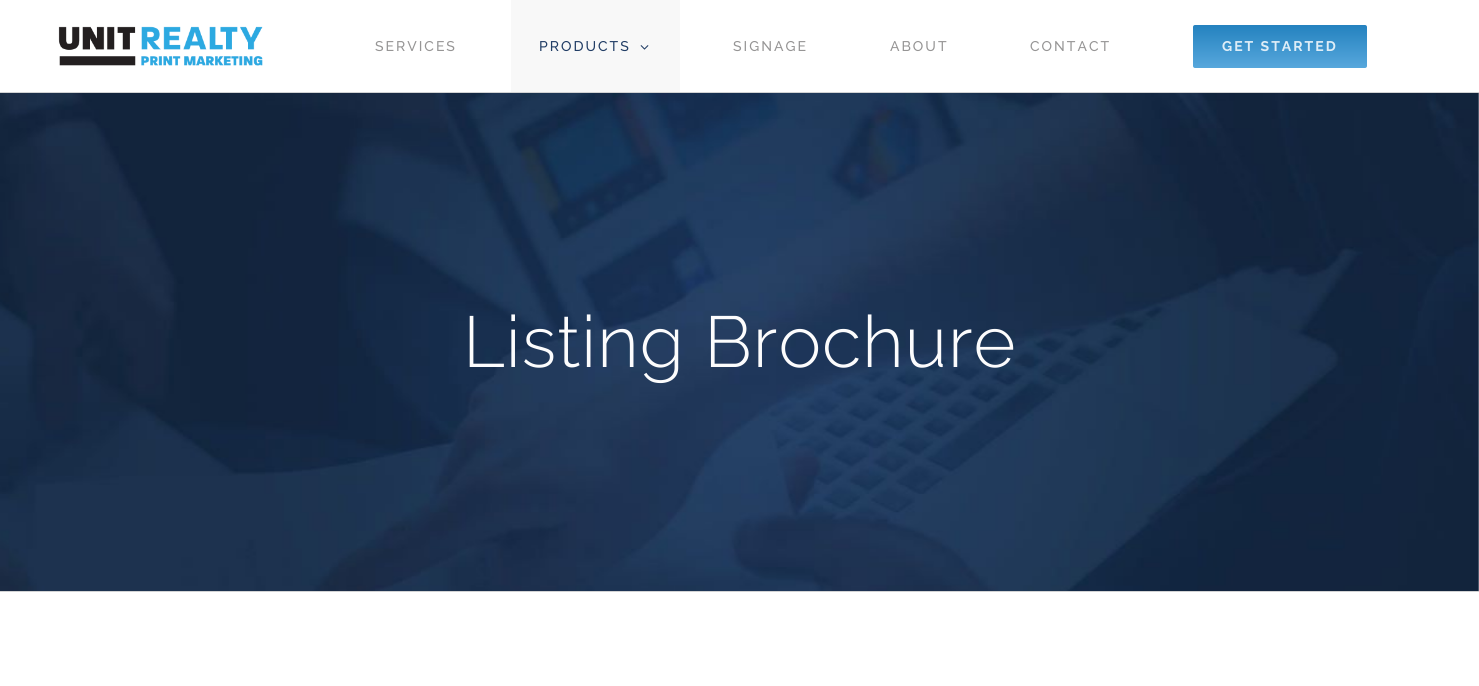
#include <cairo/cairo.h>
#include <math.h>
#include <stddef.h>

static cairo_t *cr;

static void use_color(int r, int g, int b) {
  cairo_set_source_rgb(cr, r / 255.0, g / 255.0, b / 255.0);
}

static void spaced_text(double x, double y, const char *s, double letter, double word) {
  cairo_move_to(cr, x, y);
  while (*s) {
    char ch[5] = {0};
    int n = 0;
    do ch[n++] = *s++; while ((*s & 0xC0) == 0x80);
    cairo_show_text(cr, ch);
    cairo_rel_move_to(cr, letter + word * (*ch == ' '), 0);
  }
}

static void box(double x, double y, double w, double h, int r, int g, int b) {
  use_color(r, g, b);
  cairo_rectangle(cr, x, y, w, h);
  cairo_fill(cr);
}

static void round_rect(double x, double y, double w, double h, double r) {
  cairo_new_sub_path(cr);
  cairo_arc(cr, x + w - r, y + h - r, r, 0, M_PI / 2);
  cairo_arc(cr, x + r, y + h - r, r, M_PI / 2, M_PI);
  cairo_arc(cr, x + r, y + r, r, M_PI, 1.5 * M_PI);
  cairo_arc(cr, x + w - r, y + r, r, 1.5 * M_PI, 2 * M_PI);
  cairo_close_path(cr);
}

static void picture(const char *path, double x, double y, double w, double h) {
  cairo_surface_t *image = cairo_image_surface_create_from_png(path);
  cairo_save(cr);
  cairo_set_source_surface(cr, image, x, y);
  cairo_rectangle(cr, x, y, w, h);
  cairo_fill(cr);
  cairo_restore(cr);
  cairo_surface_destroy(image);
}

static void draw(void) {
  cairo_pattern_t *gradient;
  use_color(255, 255, 255);
  cairo_paint(cr);
  picture("img_01.png", 58, 26, 205, 40);
  box(511, 0, 169, 92, 248, 248, 248);
  picture("img_02.png", 640, 45, 9, 5);
  gradient = cairo_pattern_create_linear(1280, 68, 1280, 25);
  cairo_pattern_add_color_stop_rgba(gradient, 0, 0.341, 0.655, 0.863, 1);
  cairo_pattern_add_color_stop_rgba(gradient, 1, 0.141, 0.51, 0.749, 1);
  cairo_set_source(cr, gradient);
  cairo_pattern_destroy(gradient);
  round_rect(1193, 25, 174, 43, 2);
  cairo_fill(cr);
  picture("img_03.png", 0, 93, 1479, 498);
  box(0, 92, 1479, 1, 210, 211, 212);
  box(0, 591, 1479, 1, 210, 211, 212);
  cairo_select_font_face(cr, "Raleway Medium", CAIRO_FONT_SLANT_NORMAL, CAIRO_FONT_WEIGHT_NORMAL);
  cairo_set_font_size(cr, 14);
  use_color(150, 149, 149);
  spaced_text(375, 51, "SERVICES", 2, 0);
  use_color(33, 61, 101);
  spaced_text(539, 51, "PRODUCTS", 2, 0);
  use_color(150, 149, 149);
  spaced_text(733, 51, "SIGNAGE", 2, 0);
  spaced_text(890, 51, "ABOUT", 2, 0);
  spaced_text(1030, 51, "CONTACT", 2, 0);
  cairo_select_font_face(cr, "Raleway", CAIRO_FONT_SLANT_NORMAL, CAIRO_FONT_WEIGHT_BOLD);
  use_color(222, 237, 247);
  spaced_text(1222, 51, "GET STARTED", 2, 0);
  cairo_select_font_face(cr, "Raleway Light", CAIRO_FONT_SLANT_NORMAL, CAIRO_FONT_WEIGHT_NORMAL);
  cairo_set_font_size(cr, 72);
  use_color(252, 252, 253);
  spaced_text(463, 367, "Listing Brochure", 1, 0);
}

int main(void) {
  cairo_surface_t *surface = cairo_image_surface_create(CAIRO_FORMAT_RGB24, 1479, 686);
  cr = cairo_create(surface);
  cairo_font_options_t *options = cairo_font_options_create();
  cairo_font_options_set_hint_metrics(options, CAIRO_HINT_METRICS_OFF);
  cairo_font_options_set_hint_style(options, CAIRO_HINT_STYLE_NONE);
  cairo_set_font_options(cr, options);
  cairo_set_miter_limit(cr, 4);
  draw();
  cairo_surface_write_to_png(surface, "out.png");
  cairo_font_options_destroy(options);
  cairo_destroy(cr);
  cairo_surface_destroy(surface);
  return 0;
}
